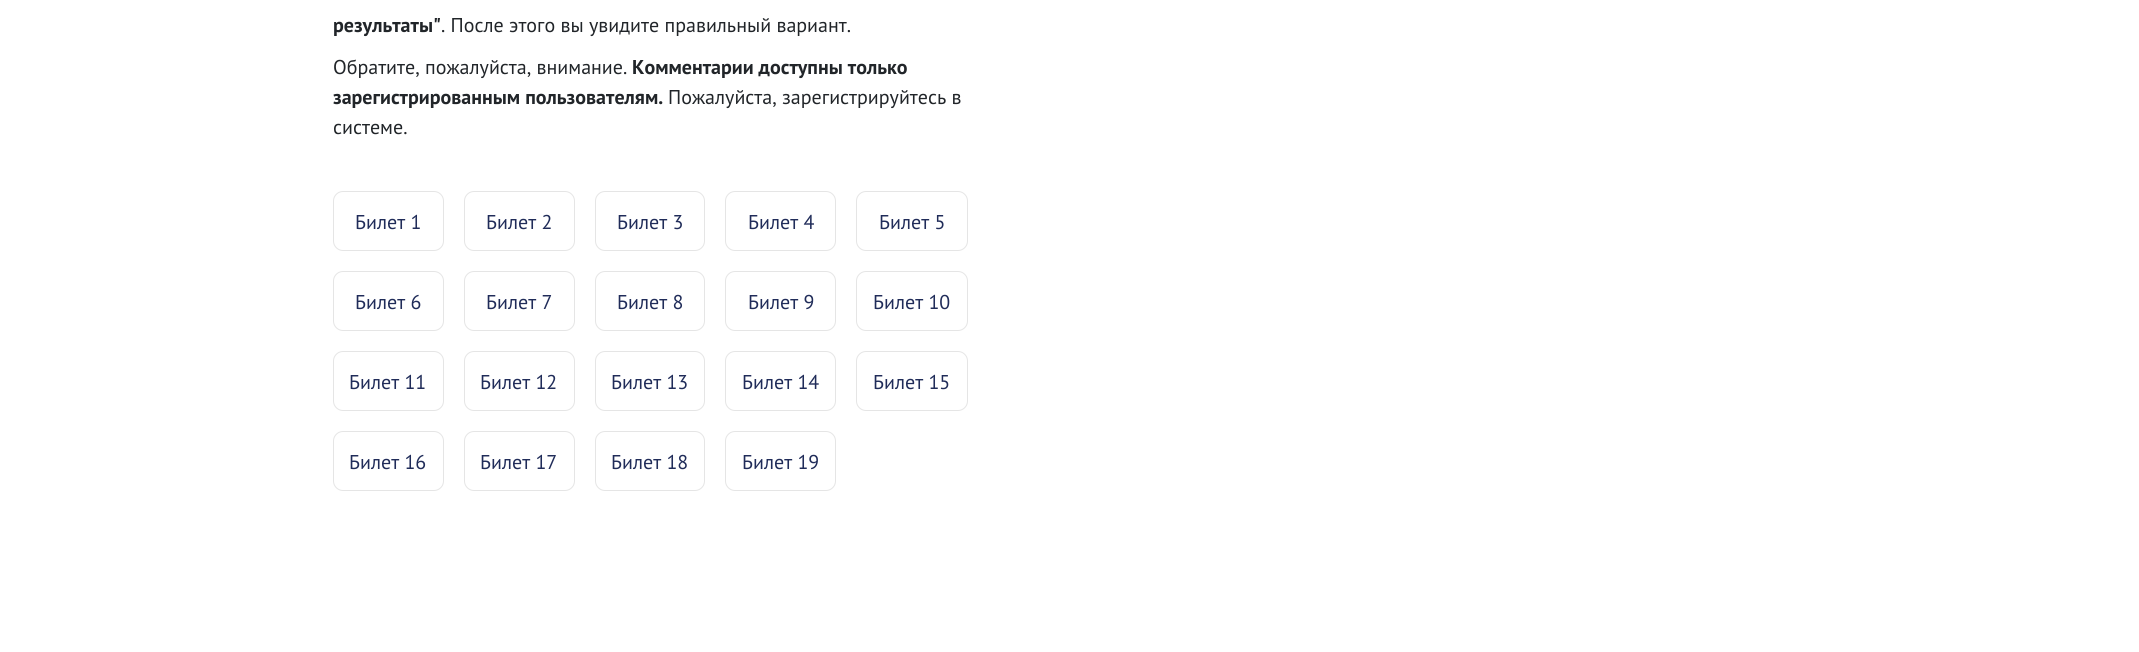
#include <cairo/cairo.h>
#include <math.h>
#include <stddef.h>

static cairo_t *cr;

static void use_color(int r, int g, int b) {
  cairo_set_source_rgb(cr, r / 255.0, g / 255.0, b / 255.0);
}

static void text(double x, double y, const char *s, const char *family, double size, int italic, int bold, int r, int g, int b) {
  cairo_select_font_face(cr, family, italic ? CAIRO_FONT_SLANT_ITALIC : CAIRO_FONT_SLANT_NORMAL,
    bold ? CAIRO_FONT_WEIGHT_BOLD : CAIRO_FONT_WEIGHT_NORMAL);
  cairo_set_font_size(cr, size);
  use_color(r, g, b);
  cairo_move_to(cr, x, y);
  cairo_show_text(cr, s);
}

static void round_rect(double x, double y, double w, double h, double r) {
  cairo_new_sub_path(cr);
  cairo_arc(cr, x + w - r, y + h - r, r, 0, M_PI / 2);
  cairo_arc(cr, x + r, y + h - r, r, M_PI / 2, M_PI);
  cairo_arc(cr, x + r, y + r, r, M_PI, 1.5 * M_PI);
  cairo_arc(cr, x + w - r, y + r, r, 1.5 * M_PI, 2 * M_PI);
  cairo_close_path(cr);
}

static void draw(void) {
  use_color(255, 255, 255);
  cairo_paint(cr);
  round_rect(333.5, 191.5, 110, 59, 9.5);
  use_color(229, 229, 229);
  cairo_set_line_width(cr, 1);
  cairo_stroke(cr);
  round_rect(464.5, 191.5, 110, 59, 9.5);
  cairo_stroke(cr);
  round_rect(595.5, 191.5, 109, 59, 9.5);
  cairo_stroke(cr);
  round_rect(725.5, 191.5, 110, 59, 9.5);
  cairo_stroke(cr);
  round_rect(856.5, 191.5, 111, 59, 9.5);
  cairo_stroke(cr);
  round_rect(333.5, 271.5, 110, 59, 9.5);
  cairo_stroke(cr);
  round_rect(464.5, 271.5, 110, 59, 9.5);
  cairo_stroke(cr);
  round_rect(595.5, 271.5, 109, 59, 9.5);
  cairo_stroke(cr);
  round_rect(725.5, 271.5, 110, 59, 9.5);
  cairo_stroke(cr);
  round_rect(856.5, 271.5, 111, 59, 9.5);
  cairo_stroke(cr);
  round_rect(333.5, 351.5, 110, 59, 9.5);
  cairo_stroke(cr);
  round_rect(464.5, 351.5, 110, 59, 9.5);
  cairo_stroke(cr);
  round_rect(595.5, 351.5, 109, 59, 9.5);
  cairo_stroke(cr);
  round_rect(725.5, 351.5, 110, 59, 9.5);
  cairo_stroke(cr);
  round_rect(856.5, 351.5, 111, 59, 9.5);
  cairo_stroke(cr);
  round_rect(333.5, 431.5, 110, 59, 9.5);
  cairo_stroke(cr);
  round_rect(464.5, 431.5, 110, 59, 9.5);
  cairo_stroke(cr);
  round_rect(595.5, 431.5, 109, 59, 9.5);
  cairo_stroke(cr);
  round_rect(725.5, 431.5, 110, 59, 9.5);
  cairo_stroke(cr);
  text(333, 32, "результаты\"", "PT Sans", 20, 0, 1, 33, 37, 41);
  text(441, 32, ". После этого вы увидите правильный вариант.", "PT Sans", 20, 0, 0, 33, 37, 41);
  text(333, 74, "Обратите, пожалуйста, внимание.", "PT Sans", 20, 0, 0, 33, 37, 41);
  text(632, 74, "Комментарии доступны только", "PT Sans", 20, 0, 1, 33, 37, 41);
  text(333, 104, "зарегистрированным пользователям.", "PT Sans", 20, 0, 1, 33, 37, 41);
  text(668, 104, "Пожалуйста, зарегистрируйтесь в", "PT Sans", 20, 0, 0, 33, 37, 41);
  text(333, 134, "системе.", "PT Sans", 20, 0, 0, 33, 37, 41);
  text(355, 229, "Билет 1", "PT Sans", 20, 0, 0, 32, 44, 89);
  text(486, 229, "Билет 2", "PT Sans", 20, 0, 0, 32, 44, 89);
  text(617, 229, "Билет 3", "PT Sans", 20, 0, 0, 32, 44, 89);
  text(748, 229, "Билет 4", "PT Sans", 20, 0, 0, 32, 44, 89);
  text(879, 229, "Билет 5", "PT Sans", 20, 0, 0, 32, 44, 89);
  text(355, 309, "Билет 6", "PT Sans", 20, 0, 0, 32, 44, 89);
  text(486, 309, "Билет 7", "PT Sans", 20, 0, 0, 32, 44, 89);
  text(617, 309, "Билет 8", "PT Sans", 20, 0, 0, 32, 44, 89);
  text(748, 309, "Билет 9", "PT Sans", 20, 0, 0, 32, 44, 89);
  text(873, 309, "Билет 10", "PT Sans", 20, 0, 0, 32, 44, 89);
  text(349, 389, "Билет 11", "PT Sans", 20, 0, 0, 32, 44, 89);
  text(480, 389, "Билет 12", "PT Sans", 20, 0, 0, 32, 44, 89);
  text(611, 389, "Билет 13", "PT Sans", 20, 0, 0, 32, 44, 89);
  text(742, 389, "Билет 14", "PT Sans", 20, 0, 0, 32, 44, 89);
  text(873, 389, "Билет 15", "PT Sans", 20, 0, 0, 32, 44, 89);
  text(349, 469, "Билет 16", "PT Sans", 20, 0, 0, 32, 44, 89);
  text(480, 469, "Билет 17", "PT Sans", 20, 0, 0, 32, 44, 89);
  text(611, 469, "Билет 18", "PT Sans", 20, 0, 0, 32, 44, 89);
  text(742, 469, "Билет 19", "PT Sans", 20, 0, 0, 32, 44, 89);
}

int main(void) {
  cairo_surface_t *surface = cairo_image_surface_create(CAIRO_FORMAT_RGB24, 2139, 652);
  cr = cairo_create(surface);
  cairo_font_options_t *options = cairo_font_options_create();
  cairo_font_options_set_hint_metrics(options, CAIRO_HINT_METRICS_OFF);
  cairo_font_options_set_hint_style(options, CAIRO_HINT_STYLE_NONE);
  cairo_set_font_options(cr, options);
  cairo_set_miter_limit(cr, 4);
  draw();
  cairo_surface_write_to_png(surface, "out.png");
  cairo_font_options_destroy(options);
  cairo_destroy(cr);
  cairo_surface_destroy(surface);
  return 0;
}
